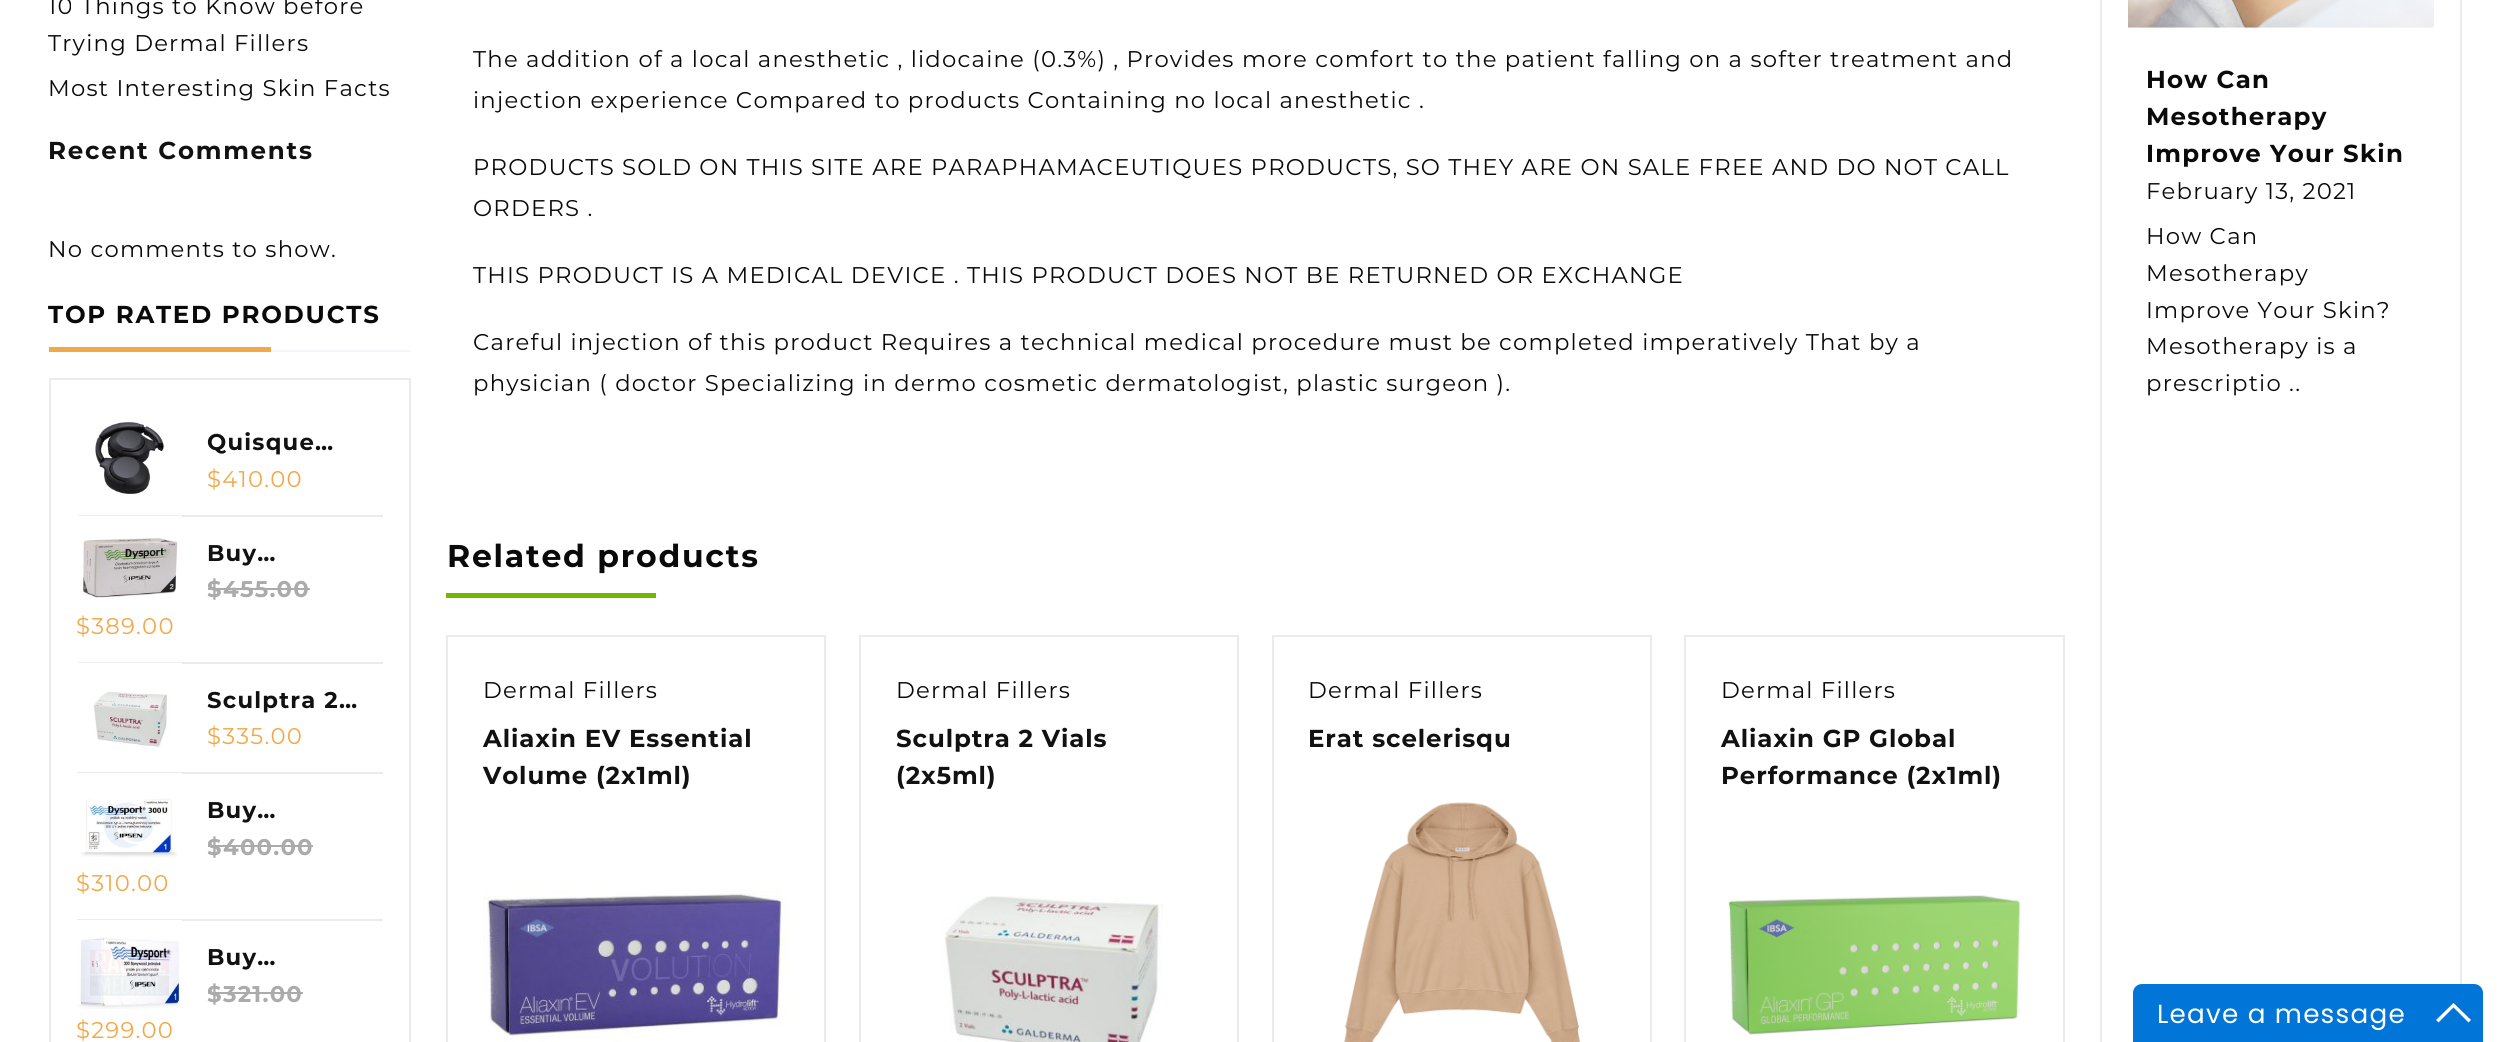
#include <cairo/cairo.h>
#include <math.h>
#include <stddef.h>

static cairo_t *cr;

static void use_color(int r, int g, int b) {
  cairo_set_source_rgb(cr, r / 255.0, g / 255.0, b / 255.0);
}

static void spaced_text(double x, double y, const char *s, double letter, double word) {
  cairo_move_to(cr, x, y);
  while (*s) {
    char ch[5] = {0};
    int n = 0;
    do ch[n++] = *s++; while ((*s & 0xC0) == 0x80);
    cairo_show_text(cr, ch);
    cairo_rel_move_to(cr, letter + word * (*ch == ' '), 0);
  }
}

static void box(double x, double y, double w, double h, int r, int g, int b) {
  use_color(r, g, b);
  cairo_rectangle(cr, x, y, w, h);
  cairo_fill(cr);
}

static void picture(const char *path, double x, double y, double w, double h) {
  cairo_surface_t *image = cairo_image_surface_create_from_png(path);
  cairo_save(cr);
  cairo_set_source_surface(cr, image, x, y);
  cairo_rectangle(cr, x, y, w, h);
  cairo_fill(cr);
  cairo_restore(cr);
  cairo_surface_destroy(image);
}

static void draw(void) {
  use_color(255, 255, 255);
  cairo_paint(cr);
  box(271, 350, 140, 2, 244, 247, 249);
  box(49, 347, 222, 5, 243, 168, 71);
  cairo_rectangle(cr, 50, 379, 360, 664);
  use_color(235, 235, 235);
  cairo_stroke(cr);
  box(77, 515, 306, 2, 235, 235, 235);
  picture("img_01.png", 95, 422, 69, 72);
  box(77, 662, 306, 2, 235, 235, 235);
  picture("img_02.png", 77, 515, 105, 83);
  box(208, 588, 16, 2, 171, 171, 171);
  box(224, 588, 86, 2, 171, 171, 171);
  box(77, 772, 306, 2, 235, 235, 235);
  picture("img_03.png", 77, 662, 105, 85);
  box(77, 919, 306, 2, 235, 235, 235);
  picture("img_04.png", 77, 773, 105, 85);
  box(208, 845, 16, 2, 171, 171, 171);
  box(224, 845, 89, 2, 171, 171, 171);
  picture("img_05.png", 77, 920, 105, 89);
  box(208, 992, 16, 2, 171, 171, 171);
  box(224, 992, 79, 2, 171, 171, 171);
  box(446, 593, 210, 5, 112, 183, 0);
  cairo_rectangle(cr, 447, 636, 378, 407);
  use_color(235, 235, 235);
  cairo_stroke(cr);
  picture("img_06.png", 483, 888, 306, 154);
  cairo_rectangle(cr, 860, 636, 378, 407);
  cairo_stroke(cr);
  picture("img_07.png", 942, 896, 221, 146);
  cairo_rectangle(cr, 1273, 636, 378, 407);
  cairo_stroke(cr);
  picture("img_08.png", 1344, 802, 237, 240);
  cairo_rectangle(cr, 1685, 636, 379, 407);
  cairo_stroke(cr);
  picture("img_09.png", 1728, 895, 292, 140);
  cairo_rectangle(cr, 2101, -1, 360, 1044);
  cairo_stroke(cr);
  picture("img_10.png", 2128, 0, 306, 28);
  use_color(2, 117, 216);
  cairo_new_path(cr);
  cairo_move_to(cr, 2142, 984);
  cairo_line_to(cr, 2474, 984);
  cairo_curve_to(cr, 2479, 984, 2483, 988, 2483, 993);
  cairo_line_to(cr, 2483, 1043);
  cairo_line_to(cr, 2133, 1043);
  cairo_line_to(cr, 2133, 993);
  cairo_curve_to(cr, 2133, 988, 2137, 984, 2142, 984);
  cairo_close_path(cr);
  cairo_fill(cr);
  use_color(255, 255, 255);
  cairo_new_path(cr);
  cairo_move_to(cr, 2453.5, 1003);
  cairo_line_to(cr, 2471, 1020);
  cairo_line_to(cr, 2468.5, 1022.5);
  cairo_line_to(cr, 2453.5, 1007.5);
  cairo_line_to(cr, 2438.5, 1022.5);
  cairo_line_to(cr, 2436, 1020);
  cairo_close_path(cr);
  cairo_fill(cr);
  cairo_select_font_face(cr, "Montserrat", CAIRO_FONT_SLANT_NORMAL, CAIRO_FONT_WEIGHT_NORMAL);
  cairo_set_font_size(cr, 22.75);
  use_color(10, 10, 10);
  spaced_text(48, 14, "10 Things to Know before", 1.22, 0);
  spaced_text(48, 51, "Trying Dermal Fillers", 1.22, 0);
  spaced_text(48, 96, "Most Interesting Skin Facts", 1.22, 0);
  cairo_select_font_face(cr, "Montserrat", CAIRO_FONT_SLANT_NORMAL, CAIRO_FONT_WEIGHT_BOLD);
  cairo_set_font_size(cr, 24.5);
  use_color(17, 17, 17);
  spaced_text(48, 159, "Recent Comments", 1.75, 0);
  cairo_select_font_face(cr, "Montserrat", CAIRO_FONT_SLANT_NORMAL, CAIRO_FONT_WEIGHT_NORMAL);
  cairo_set_font_size(cr, 22.75);
  use_color(10, 10, 10);
  spaced_text(48, 257, "No comments to show.", 1.22, 0);
  cairo_select_font_face(cr, "Montserrat", CAIRO_FONT_SLANT_NORMAL, CAIRO_FONT_WEIGHT_BOLD);
  cairo_set_font_size(cr, 24.5);
  spaced_text(48, 323, "TOP RATED PRODUCTS", 1.75, 0);
  cairo_set_font_size(cr, 22.75);
  use_color(17, 17, 17);
  spaced_text(207, 450, "Quisque…", 1.22, 0);
  cairo_select_font_face(cr, "Montserrat", CAIRO_FONT_SLANT_NORMAL, CAIRO_FONT_WEIGHT_NORMAL);
  use_color(243, 168, 71);
  spaced_text(207, 487, "$410.00", 1.22, 0);
  cairo_select_font_face(cr, "Montserrat", CAIRO_FONT_SLANT_NORMAL, CAIRO_FONT_WEIGHT_BOLD);
  use_color(17, 17, 17);
  spaced_text(207, 561, "Buy…", 1.22, 0);
  use_color(171, 171, 171);
  spaced_text(207, 597, "$", 1.22, 0);
  spaced_text(223, 597, "455.00", 1.22, 0);
  cairo_select_font_face(cr, "Montserrat", CAIRO_FONT_SLANT_NORMAL, CAIRO_FONT_WEIGHT_NORMAL);
  use_color(243, 168, 71);
  spaced_text(76, 634, "$389.00", 1.22, 0);
  cairo_select_font_face(cr, "Montserrat", CAIRO_FONT_SLANT_NORMAL, CAIRO_FONT_WEIGHT_BOLD);
  use_color(17, 17, 17);
  spaced_text(207, 708, "Sculptra 2…", 1.22, 0);
  cairo_select_font_face(cr, "Montserrat", CAIRO_FONT_SLANT_NORMAL, CAIRO_FONT_WEIGHT_NORMAL);
  use_color(243, 168, 71);
  spaced_text(207, 744, "$335.00", 1.22, 0);
  cairo_select_font_face(cr, "Montserrat", CAIRO_FONT_SLANT_NORMAL, CAIRO_FONT_WEIGHT_BOLD);
  use_color(17, 17, 17);
  spaced_text(207, 818, "Buy…", 1.22, 0);
  use_color(171, 171, 171);
  spaced_text(207, 855, "$", 1.22, 0);
  spaced_text(223, 855, "400.00", 1.22, 0);
  cairo_select_font_face(cr, "Montserrat", CAIRO_FONT_SLANT_NORMAL, CAIRO_FONT_WEIGHT_NORMAL);
  use_color(243, 168, 71);
  spaced_text(76, 891, "$310.00", 1.22, 0);
  cairo_select_font_face(cr, "Montserrat", CAIRO_FONT_SLANT_NORMAL, CAIRO_FONT_WEIGHT_BOLD);
  use_color(17, 17, 17);
  spaced_text(207, 965, "Buy…", 1.22, 0);
  use_color(171, 171, 171);
  spaced_text(207, 1002, "$", 1.22, 0);
  spaced_text(223, 1002, "321.00", 1.22, 0);
  cairo_select_font_face(cr, "Montserrat", CAIRO_FONT_SLANT_NORMAL, CAIRO_FONT_WEIGHT_NORMAL);
  use_color(243, 168, 71);
  spaced_text(76, 1038, "$299.00", 1.22, 0);
  use_color(10, 10, 10);
  spaced_text(473, 67, "The addition of a local anesthetic , lidocaine (0.3%) , Provides more comfort to the patient falling on a softer treatment and", 1.22, 0);
  spaced_text(473, 108, "injection experience Compared to products Containing no local anesthetic .", 1.22, 0);
  spaced_text(473, 175, "PRODUCTS SOLD ON THIS SITE ARE PARAPHAMACEUTIQUES PRODUCTS, SO THEY ARE ON SALE FREE AND DO NOT CALL", 1.22, 0);
  spaced_text(473, 216, "ORDERS .", 1.22, 0);
  spaced_text(473, 283, "THIS PRODUCT IS A MEDICAL DEVICE . THIS PRODUCT DOES NOT BE RETURNED OR EXCHANGE", 1.22, 0);
  spaced_text(473, 350, "Careful injection of this product Requires a technical medical procedure must be completed imperatively That by a", 1.22, 0);
  spaced_text(473, 391, "physician ( doctor Specializing in dermo cosmetic dermatologist, plastic surgeon ).", 1.22, 0);
  cairo_select_font_face(cr, "Montserrat", CAIRO_FONT_SLANT_NORMAL, CAIRO_FONT_WEIGHT_BOLD);
  cairo_set_font_size(cr, 31.5);
  spaced_text(447, 567, "Related products", 1.75, 0);
  cairo_select_font_face(cr, "Montserrat", CAIRO_FONT_SLANT_NORMAL, CAIRO_FONT_WEIGHT_NORMAL);
  cairo_set_font_size(cr, 22.75);
  spaced_text(483, 698, "Dermal Fillers", 1.22, 0);
  cairo_select_font_face(cr, "Montserrat", CAIRO_FONT_SLANT_NORMAL, CAIRO_FONT_WEIGHT_BOLD);
  cairo_set_font_size(cr, 24.5);
  use_color(17, 17, 17);
  spaced_text(483, 747, "Aliaxin EV Essential", 0.9, 0);
  spaced_text(483, 784, "Volume (2x1ml)", 0.9, 0);
  cairo_select_font_face(cr, "Montserrat", CAIRO_FONT_SLANT_NORMAL, CAIRO_FONT_WEIGHT_NORMAL);
  cairo_set_font_size(cr, 22.75);
  use_color(10, 10, 10);
  spaced_text(896, 698, "Dermal Fillers", 1.22, 0);
  cairo_select_font_face(cr, "Montserrat", CAIRO_FONT_SLANT_NORMAL, CAIRO_FONT_WEIGHT_BOLD);
  cairo_set_font_size(cr, 24.5);
  use_color(17, 17, 17);
  spaced_text(896, 747, "Sculptra 2 Vials", 0.9, 0);
  spaced_text(896, 784, "(2x5ml)", 0.9, 0);
  cairo_select_font_face(cr, "Montserrat", CAIRO_FONT_SLANT_NORMAL, CAIRO_FONT_WEIGHT_NORMAL);
  cairo_set_font_size(cr, 22.75);
  use_color(10, 10, 10);
  spaced_text(1308, 698, "Dermal Fillers", 1.22, 0);
  cairo_select_font_face(cr, "Montserrat", CAIRO_FONT_SLANT_NORMAL, CAIRO_FONT_WEIGHT_BOLD);
  cairo_set_font_size(cr, 24.5);
  use_color(17, 17, 17);
  spaced_text(1308, 747, "Erat scelerisqu", 0.9, 0);
  cairo_select_font_face(cr, "Montserrat", CAIRO_FONT_SLANT_NORMAL, CAIRO_FONT_WEIGHT_NORMAL);
  cairo_set_font_size(cr, 22.75);
  use_color(10, 10, 10);
  spaced_text(1721, 698, "Dermal Fillers", 1.22, 0);
  cairo_select_font_face(cr, "Montserrat", CAIRO_FONT_SLANT_NORMAL, CAIRO_FONT_WEIGHT_BOLD);
  cairo_set_font_size(cr, 24.5);
  use_color(17, 17, 17);
  spaced_text(1721, 747, "Aliaxin GP Global", 0.9, 0);
  spaced_text(1721, 784, "Performance (2x1ml)", 0.9, 0);
  use_color(10, 10, 10);
  spaced_text(2146, 88, "How Can", 1.22, 0);
  spaced_text(2146, 125, "Mesotherapy", 1.22, 0);
  spaced_text(2146, 162, "Improve Your Skin", 1.22, 0);
  cairo_select_font_face(cr, "Montserrat", CAIRO_FONT_SLANT_NORMAL, CAIRO_FONT_WEIGHT_NORMAL);
  cairo_set_font_size(cr, 22.75);
  spaced_text(2146, 199, "February 13, 2021", 1.22, 0);
  spaced_text(2146, 244, "How Can", 1.22, 0);
  spaced_text(2146, 281, "Mesotherapy", 1.22, 0);
  spaced_text(2146, 318, "Improve Your Skin?", 1.22, 0);
  spaced_text(2146, 354, "Mesotherapy is a", 1.22, 0);
  spaced_text(2146, 391, "prescriptio ..", 1.22, 0);
  cairo_select_font_face(cr, "Poppins", CAIRO_FONT_SLANT_NORMAL, CAIRO_FONT_WEIGHT_NORMAL);
  cairo_set_font_size(cr, 26.25);
  use_color(255, 255, 255);
  spaced_text(2157, 1023, "Leave a message", 1.22, 0);
}

int main(void) {
  cairo_surface_t *surface = cairo_image_surface_create(CAIRO_FORMAT_RGB24, 2511, 1042);
  cr = cairo_create(surface);
  cairo_font_options_t *options = cairo_font_options_create();
  cairo_font_options_set_hint_metrics(options, CAIRO_HINT_METRICS_OFF);
  cairo_font_options_set_hint_style(options, CAIRO_HINT_STYLE_NONE);
  cairo_set_font_options(cr, options);
  cairo_set_miter_limit(cr, 4);
  draw();
  cairo_surface_write_to_png(surface, "out.png");
  cairo_font_options_destroy(options);
  cairo_destroy(cr);
  cairo_surface_destroy(surface);
  return 0;
}
